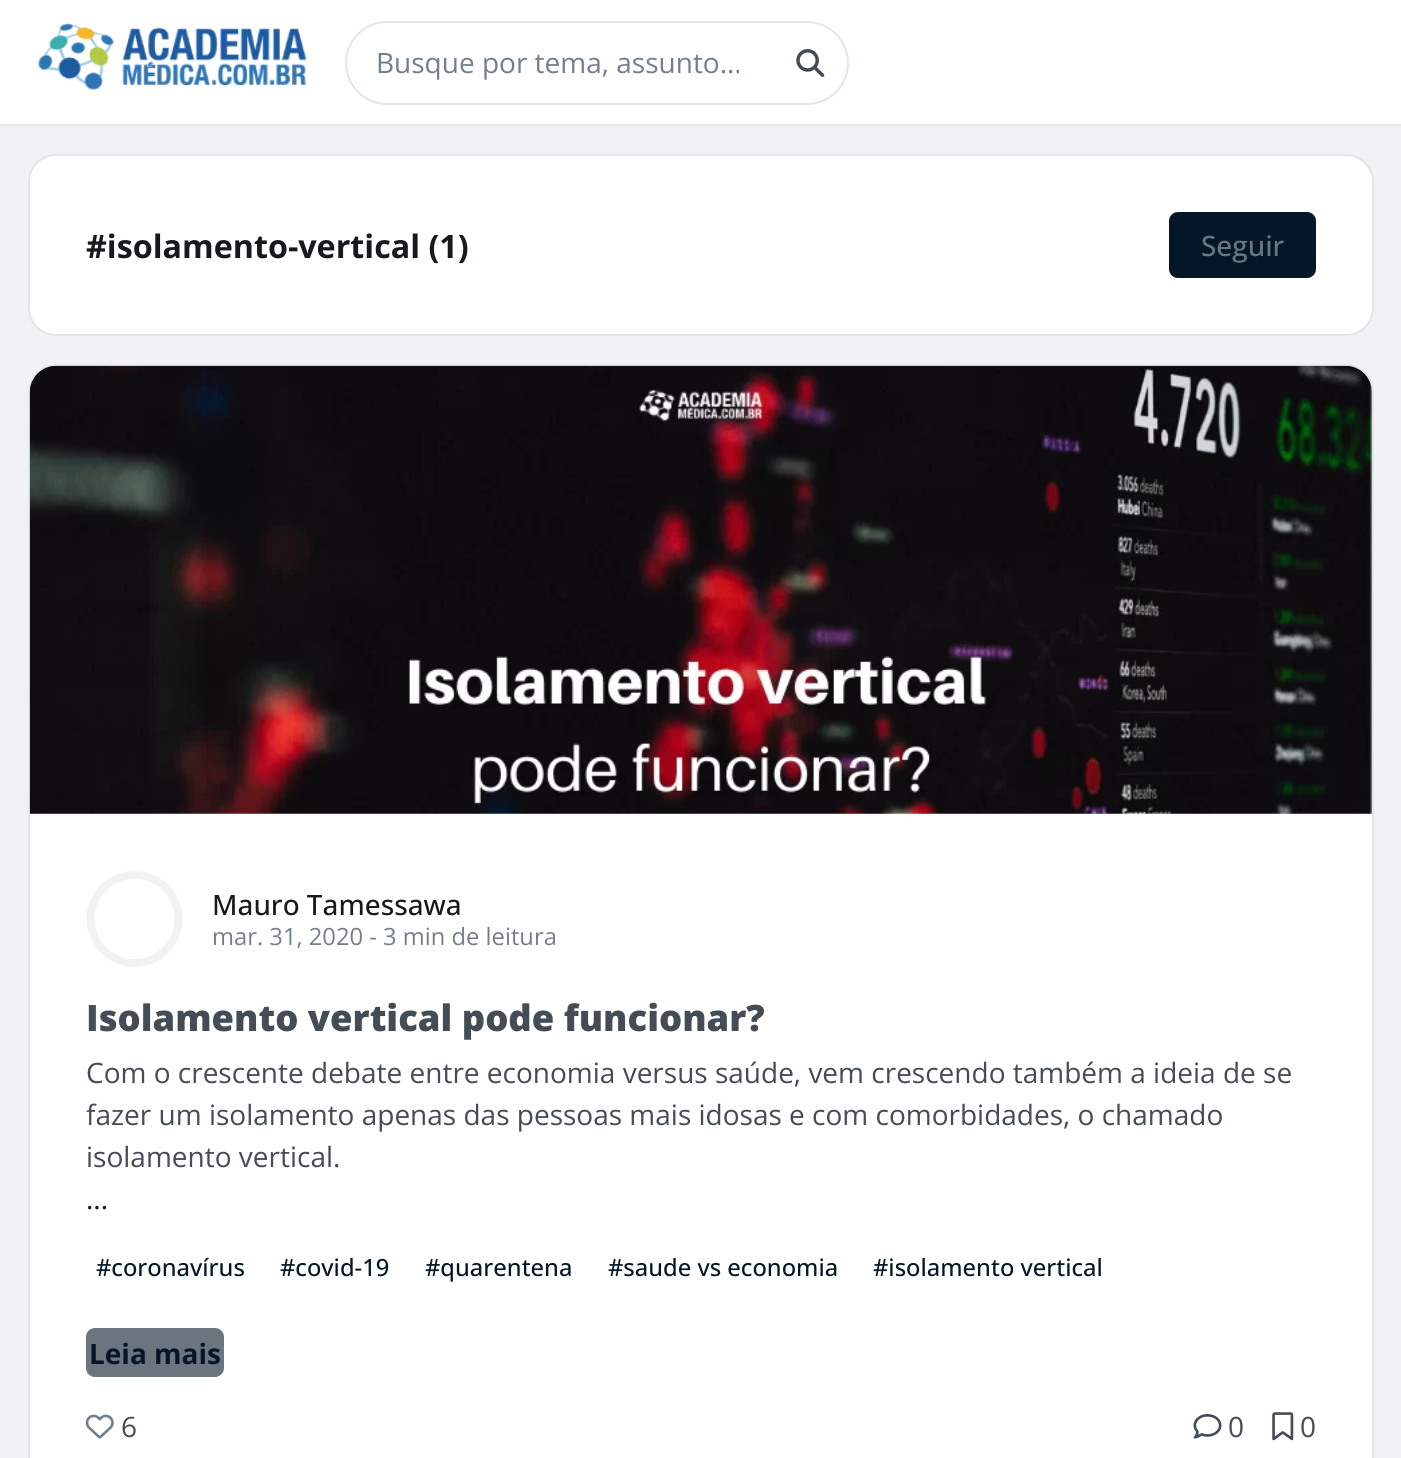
#include <cairo/cairo.h>
#include <math.h>
#include <stddef.h>

static cairo_t *cr;

static void use_color(int r, int g, int b) {
  cairo_set_source_rgb(cr, r / 255.0, g / 255.0, b / 255.0);
}

static void text(double x, double y, const char *s, const char *family, double size, int italic, int bold, int r, int g, int b) {
  cairo_select_font_face(cr, family, italic ? CAIRO_FONT_SLANT_ITALIC : CAIRO_FONT_SLANT_NORMAL,
    bold ? CAIRO_FONT_WEIGHT_BOLD : CAIRO_FONT_WEIGHT_NORMAL);
  cairo_set_font_size(cr, size);
  use_color(r, g, b);
  cairo_move_to(cr, x, y);
  cairo_show_text(cr, s);
}

static void box(double x, double y, double w, double h, int r, int g, int b) {
  use_color(r, g, b);
  cairo_rectangle(cr, x, y, w, h);
  cairo_fill(cr);
}

static void round_rect(double x, double y, double w, double h, double r) {
  cairo_new_sub_path(cr);
  cairo_arc(cr, x + w - r, y + h - r, r, 0, M_PI / 2);
  cairo_arc(cr, x + r, y + h - r, r, M_PI / 2, M_PI);
  cairo_arc(cr, x + r, y + r, r, M_PI, 1.5 * M_PI);
  cairo_arc(cr, x + w - r, y + r, r, 1.5 * M_PI, 2 * M_PI);
  cairo_close_path(cr);
}

static void picture(const char *path, double x, double y, double w, double h) {
  cairo_surface_t *image = cairo_image_surface_create_from_png(path);
  cairo_save(cr);
  cairo_set_source_surface(cr, image, x, y);
  cairo_rectangle(cr, x, y, w, h);
  cairo_fill(cr);
  cairo_restore(cr);
  cairo_surface_destroy(image);
}

static void draw(void) {
  use_color(241, 242, 244);
  cairo_paint(cr);
  box(0, 0, 1401, 124, 255, 255, 255);
  box(0, 124, 1401, 2, 227, 230, 232);
  picture("img_01.png", 38, 23, 269, 67);
  round_rect(346, 22, 502, 82, 41);
  cairo_stroke(cr);
  picture("img_02.png", 796, 49, 29, 28);
  use_color(255, 255, 255);
  round_rect(29, 155, 1344, 180, 27);
  cairo_fill_preserve(cr);
  use_color(227, 230, 232);
  cairo_stroke(cr);
  use_color(6, 22, 41);
  round_rect(1171, 214, 143, 62, 7);
  cairo_fill_preserve(cr);
  cairo_set_line_width(cr, 4);
  cairo_stroke(cr);
  use_color(255, 255, 255);
  cairo_new_path(cr);
  cairo_move_to(cr, 56, 364);
  cairo_line_to(cr, 1346, 364);
  cairo_curve_to(cr, 1361.5, 364, 1374, 376.5, 1374, 392);
  cairo_line_to(cr, 1374, 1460);
  cairo_line_to(cr, 28, 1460);
  cairo_line_to(cr, 28, 392);
  cairo_curve_to(cr, 28, 376.5, 40.5, 364, 56, 364);
  cairo_close_path(cr);
  cairo_fill(cr);
  round_rect(29, 365, 1344, 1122, 27);
  use_color(227, 230, 232);
  cairo_set_line_width(cr, 2);
  cairo_stroke(cr);
  picture("img_03.png", 29, 365, 1343, 449);
  cairo_new_path(cr);
  cairo_move_to(cr, 90.5, 919);
  cairo_curve_to(cr, 90.5, 894.5, 110.5, 875, 134.5, 875);
  cairo_curve_to(cr, 159, 875, 178.5, 894.5, 178.5, 919);
  cairo_curve_to(cr, 178.5, 943, 159, 963, 134.5, 963);
  cairo_curve_to(cr, 110.5, 963, 90.5, 943, 90.5, 919);
  cairo_close_path(cr);
  use_color(241, 242, 244);
  cairo_set_line_width(cr, 7.8);
  cairo_stroke(cr);
  use_color(107, 117, 128);
  round_rect(86, 1328, 138, 49, 9);
  cairo_fill(cr);
  picture("img_04.png", 85, 1414, 29, 25);
  picture("img_05.png", 1193, 1414, 29, 25);
  picture("img_06.png", 1272, 1412, 22, 29);
  cairo_save(cr);
  cairo_rectangle(cr, 376, 44, 363, 38);
  cairo_clip(cr);
  text(376, 73, "Busque por tema, assunto...", "Open Sans", 28, 0, 0, 114, 128, 141);
  cairo_restore(cr);
  text(86, 258, "#isolamento-vertical (1)", "Open Sans", 32.25, 0, 1, 23, 26, 28);
  text(1201, 256, "Seguir", "Open Sans Medium", 28, 0, 0, 107, 117, 128);
  text(212, 915, "Mauro Tamessawa", "Open Sans Medium", 28, 0, 0, 23, 26, 28);
  text(212, 945, "mar. 31, 2020 - 3 min de leitura", "Open Sans", 23.75, 0, 0, 114, 128, 141);
  text(86, 1031, "Isolamento vertical pode funcionar?", "Open Sans ExtraBold", 36.4, 0, 0, 68, 77, 85);
  text(86, 1083, "Com o crescente debate entre economia versus saúde, vem crescendo também a ideia de se", "Open Sans", 28, 0, 0, 68, 77, 85);
  text(86, 1125, "fazer um isolamento apenas das pessoas mais idosas e com comorbidades, o chamado", "Open Sans", 28, 0, 0, 68, 77, 85);
  text(86, 1167, "isolamento vertical.", "Open Sans", 28, 0, 0, 68, 77, 85);
  text(86, 1209, "...", "Open Sans", 28, 0, 0, 23, 26, 28);
  text(96, 1276, "#coronavírus", "Open Sans Medium", 23.75, 0, 0, 6, 22, 41);
  text(280, 1276, "#covid-19", "Open Sans Medium", 23.75, 0, 0, 6, 22, 41);
  text(425, 1276, "#quarentena", "Open Sans Medium", 23.75, 0, 0, 6, 22, 41);
  text(608, 1276, "#saude vs economia", "Open Sans Medium", 23.75, 0, 0, 6, 22, 41);
  text(873, 1276, "#isolamento vertical", "Open Sans Medium", 23.75, 0, 0, 6, 22, 41);
  text(89, 1364, "Leia mais", "Open Sans", 28, 0, 1, 6, 22, 41);
  text(121, 1437, "6", "Open Sans", 28, 0, 0, 68, 77, 85);
  text(1228, 1437, "0", "Open Sans", 28, 0, 0, 68, 77, 85);
  text(1300, 1437, "0", "Open Sans", 28, 0, 0, 68, 77, 85);
}

int main(void) {
  cairo_surface_t *surface = cairo_image_surface_create(CAIRO_FORMAT_RGB24, 1401, 1458);
  cr = cairo_create(surface);
  cairo_font_options_t *options = cairo_font_options_create();
  cairo_font_options_set_hint_metrics(options, CAIRO_HINT_METRICS_OFF);
  cairo_font_options_set_hint_style(options, CAIRO_HINT_STYLE_NONE);
  cairo_set_font_options(cr, options);
  cairo_set_miter_limit(cr, 4);
  draw();
  cairo_surface_write_to_png(surface, "out.png");
  cairo_font_options_destroy(options);
  cairo_destroy(cr);
  cairo_surface_destroy(surface);
  return 0;
}
